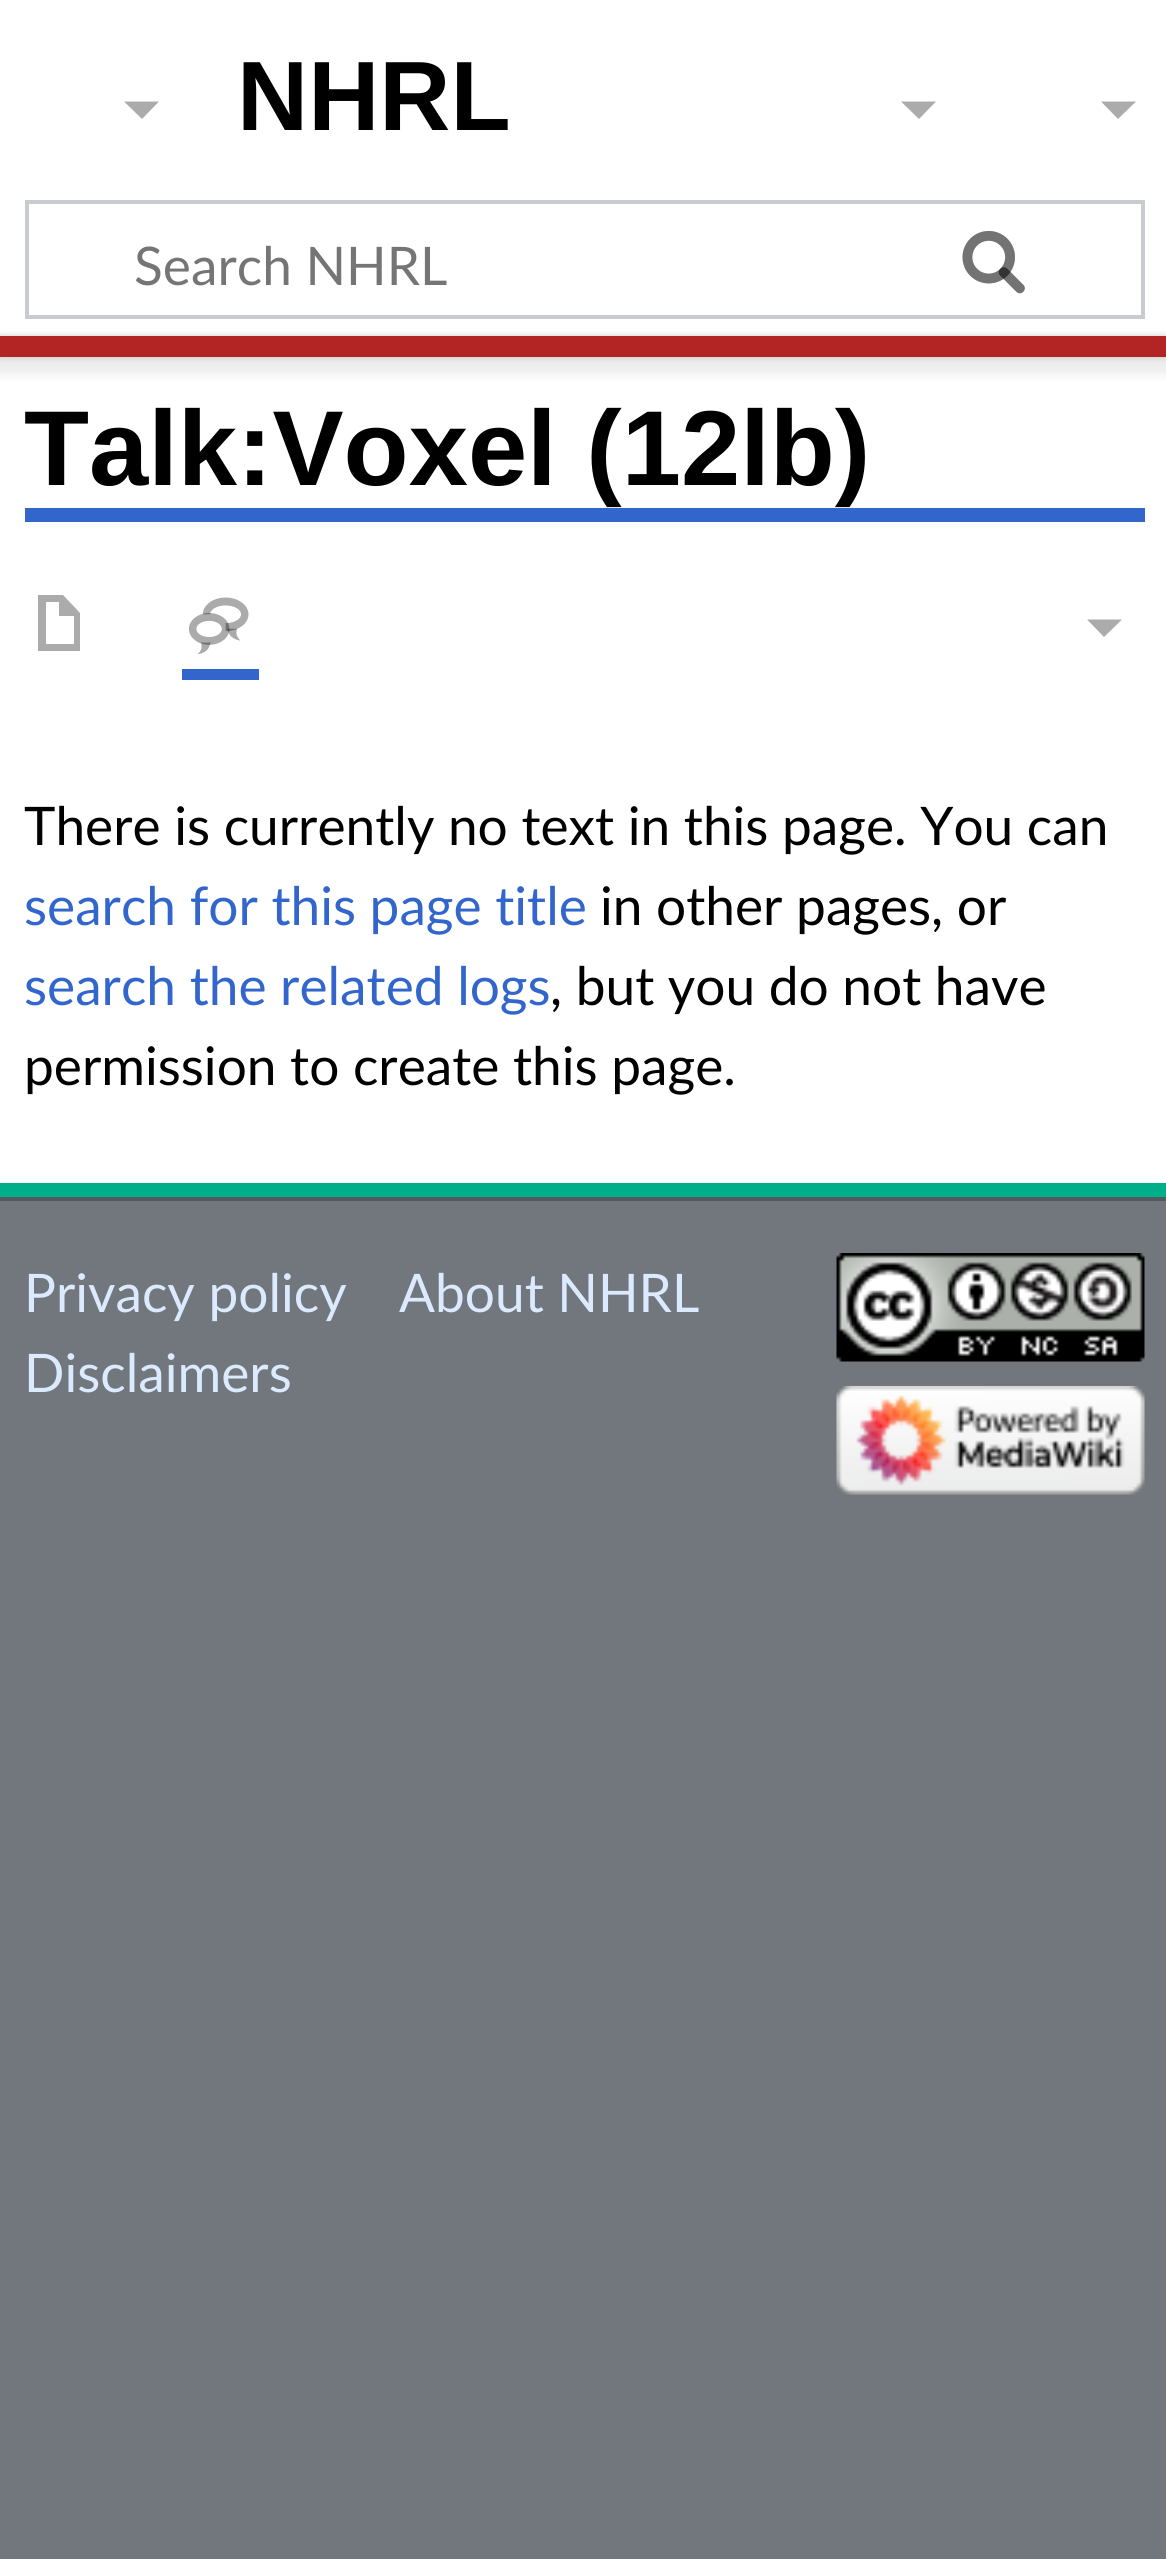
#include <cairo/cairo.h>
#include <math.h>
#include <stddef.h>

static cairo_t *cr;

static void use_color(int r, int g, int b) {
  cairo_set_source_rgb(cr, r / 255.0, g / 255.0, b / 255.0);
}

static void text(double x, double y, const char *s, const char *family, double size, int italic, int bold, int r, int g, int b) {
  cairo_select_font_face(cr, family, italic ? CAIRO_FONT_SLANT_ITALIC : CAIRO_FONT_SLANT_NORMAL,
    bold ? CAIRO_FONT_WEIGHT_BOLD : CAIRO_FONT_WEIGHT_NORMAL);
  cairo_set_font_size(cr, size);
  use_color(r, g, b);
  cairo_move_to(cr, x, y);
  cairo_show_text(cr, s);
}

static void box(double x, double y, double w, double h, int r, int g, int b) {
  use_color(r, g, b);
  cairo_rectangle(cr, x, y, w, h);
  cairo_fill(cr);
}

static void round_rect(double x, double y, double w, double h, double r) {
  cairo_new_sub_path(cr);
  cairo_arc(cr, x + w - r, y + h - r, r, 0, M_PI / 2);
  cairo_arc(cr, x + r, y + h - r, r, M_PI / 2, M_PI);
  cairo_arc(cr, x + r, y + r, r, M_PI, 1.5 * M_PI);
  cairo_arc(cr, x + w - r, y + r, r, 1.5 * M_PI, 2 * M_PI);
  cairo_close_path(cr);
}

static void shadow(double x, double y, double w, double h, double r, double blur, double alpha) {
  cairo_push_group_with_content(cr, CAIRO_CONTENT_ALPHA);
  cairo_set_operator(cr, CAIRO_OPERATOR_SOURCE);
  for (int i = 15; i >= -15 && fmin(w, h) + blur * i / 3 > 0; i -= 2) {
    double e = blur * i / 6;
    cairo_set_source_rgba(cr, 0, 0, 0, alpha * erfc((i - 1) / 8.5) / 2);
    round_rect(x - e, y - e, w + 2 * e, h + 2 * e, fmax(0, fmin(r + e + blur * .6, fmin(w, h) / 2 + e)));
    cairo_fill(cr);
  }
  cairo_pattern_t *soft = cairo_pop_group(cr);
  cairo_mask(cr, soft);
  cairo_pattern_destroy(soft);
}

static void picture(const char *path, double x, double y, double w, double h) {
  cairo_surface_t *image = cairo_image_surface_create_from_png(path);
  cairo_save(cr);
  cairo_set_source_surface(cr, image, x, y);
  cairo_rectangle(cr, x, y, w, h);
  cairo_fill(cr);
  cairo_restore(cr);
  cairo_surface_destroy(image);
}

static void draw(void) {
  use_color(114, 119, 125);
  cairo_paint(cr);
  box(0, 0, 1166, 336, 255, 255, 255);
  use_color(171, 171, 171);
  cairo_new_path(cr);
  cairo_move_to(cr, 1136, 101.5);
  cairo_line_to(cr, 1118, 119);
  cairo_line_to(cr, 1101, 101.5);
  cairo_close_path(cr);
  cairo_fill(cr);
  cairo_rectangle(cr, 27, 202, 1116, 115);
  use_color(200, 204, 209);
  cairo_set_line_width(cr, 4);
  cairo_stroke(cr);
  picture("img_01.png", 962, 231, 63, 63);
  picture("img_02.png", 962, 231, 63, 63);
  box(0, 357, 1166, 826, 255, 255, 255);
  use_color(0, 0, 0);
  shadow(0, 336, 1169, 21, 0, 3.5, 0.2);
  shadow(-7, 340, 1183, 35, 0, 5, 0.07);
  box(0, 336, 1166, 21, 179, 36, 36);
  box(0, 1183, 1166, 14, 0, 175, 137);
  use_color(171, 171, 171);
  cairo_new_path(cr);
  cairo_move_to(cr, 159, 101.5);
  cairo_line_to(cr, 142, 119);
  cairo_line_to(cr, 124, 101.5);
  cairo_close_path(cr);
  cairo_fill(cr);
  cairo_new_path(cr);
  cairo_move_to(cr, 936, 101.5);
  cairo_line_to(cr, 919, 119);
  cairo_line_to(cr, 901, 101.5);
  cairo_close_path(cr);
  cairo_fill(cr);
  box(25, 508, 1120, 14, 51, 102, 204);
  use_color(171, 171, 171);
  cairo_new_path(cr);
  cairo_move_to(cr, 38, 595);
  cairo_line_to(cr, 38, 651);
  cairo_line_to(cr, 80, 651);
  cairo_line_to(cr, 80, 613);
  cairo_line_to(cr, 63, 595);
  cairo_close_path(cr);
  cairo_move_to(cr, 46, 602);
  cairo_line_to(cr, 59, 602);
  cairo_line_to(cr, 59, 616);
  cairo_line_to(cr, 74, 616);
  cairo_line_to(cr, 74, 644);
  cairo_line_to(cr, 46, 644);
  cairo_close_path(cr);
  cairo_fill(cr);
  box(182, 669, 77, 11, 51, 102, 204);
  picture("img_03.png", 188, 597, 61, 58);
  use_color(171, 171, 171);
  cairo_new_path(cr);
  cairo_move_to(cr, 1122, 619.5);
  cairo_line_to(cr, 1104, 637);
  cairo_line_to(cr, 1087, 619.5);
  cairo_close_path(cr);
  cairo_fill(cr);
  box(0, 1197, 1166, 4, 84, 89, 93);
  picture("img_04.png", 836, 1253, 309, 109);
  picture("img_05.png", 836, 1386, 309, 109);
  text(237, 130, "NHRL", "Liberation Sans", 98.5, 0, 1, 0, 0, 0);
  text(134, 285, "Search NHRL", "Lato", 53.2, 0, 0, 117, 117, 117);
  text(24, 485, "Talk:Voxel (12lb)", "Liberation Sans", 106.5, 0, 1, 0, 0, 0);
  text(24, 845, "There is currently no text in this page. You can", "Lato", 53.2, 0, 0, 0, 0, 0);
  text(24, 925, "search for this page title", "Lato", 53.2, 0, 0, 51, 102, 204);
  text(600, 925, "in other pages, or", "Lato", 53.2, 0, 0, 0, 0, 0);
  text(24, 1005, "search the related logs", "Lato", 53.2, 0, 0, 51, 102, 204);
  text(550, 1005, ", but you do not have", "Lato", 53.2, 0, 0, 0, 0, 0);
  text(24, 1085, "permission to create this page.", "Lato", 53.2, 0, 0, 0, 0, 0);
  text(24, 1312, "Privacy policy", "Lato", 53.2, 0, 0, 219, 234, 255);
  text(399, 1312, "About NHRL", "Lato", 53.2, 0, 0, 219, 234, 255);
  text(24, 1392, "Disclaimers", "Lato", 53.2, 0, 0, 219, 234, 255);
}

int main(void) {
  cairo_surface_t *surface = cairo_image_surface_create(CAIRO_FORMAT_RGB24, 1166, 2559);
  cr = cairo_create(surface);
  cairo_font_options_t *options = cairo_font_options_create();
  cairo_font_options_set_hint_metrics(options, CAIRO_HINT_METRICS_OFF);
  cairo_font_options_set_hint_style(options, CAIRO_HINT_STYLE_NONE);
  cairo_set_font_options(cr, options);
  cairo_set_miter_limit(cr, 4);
  draw();
  cairo_surface_write_to_png(surface, "out.png");
  cairo_font_options_destroy(options);
  cairo_destroy(cr);
  cairo_surface_destroy(surface);
  return 0;
}
